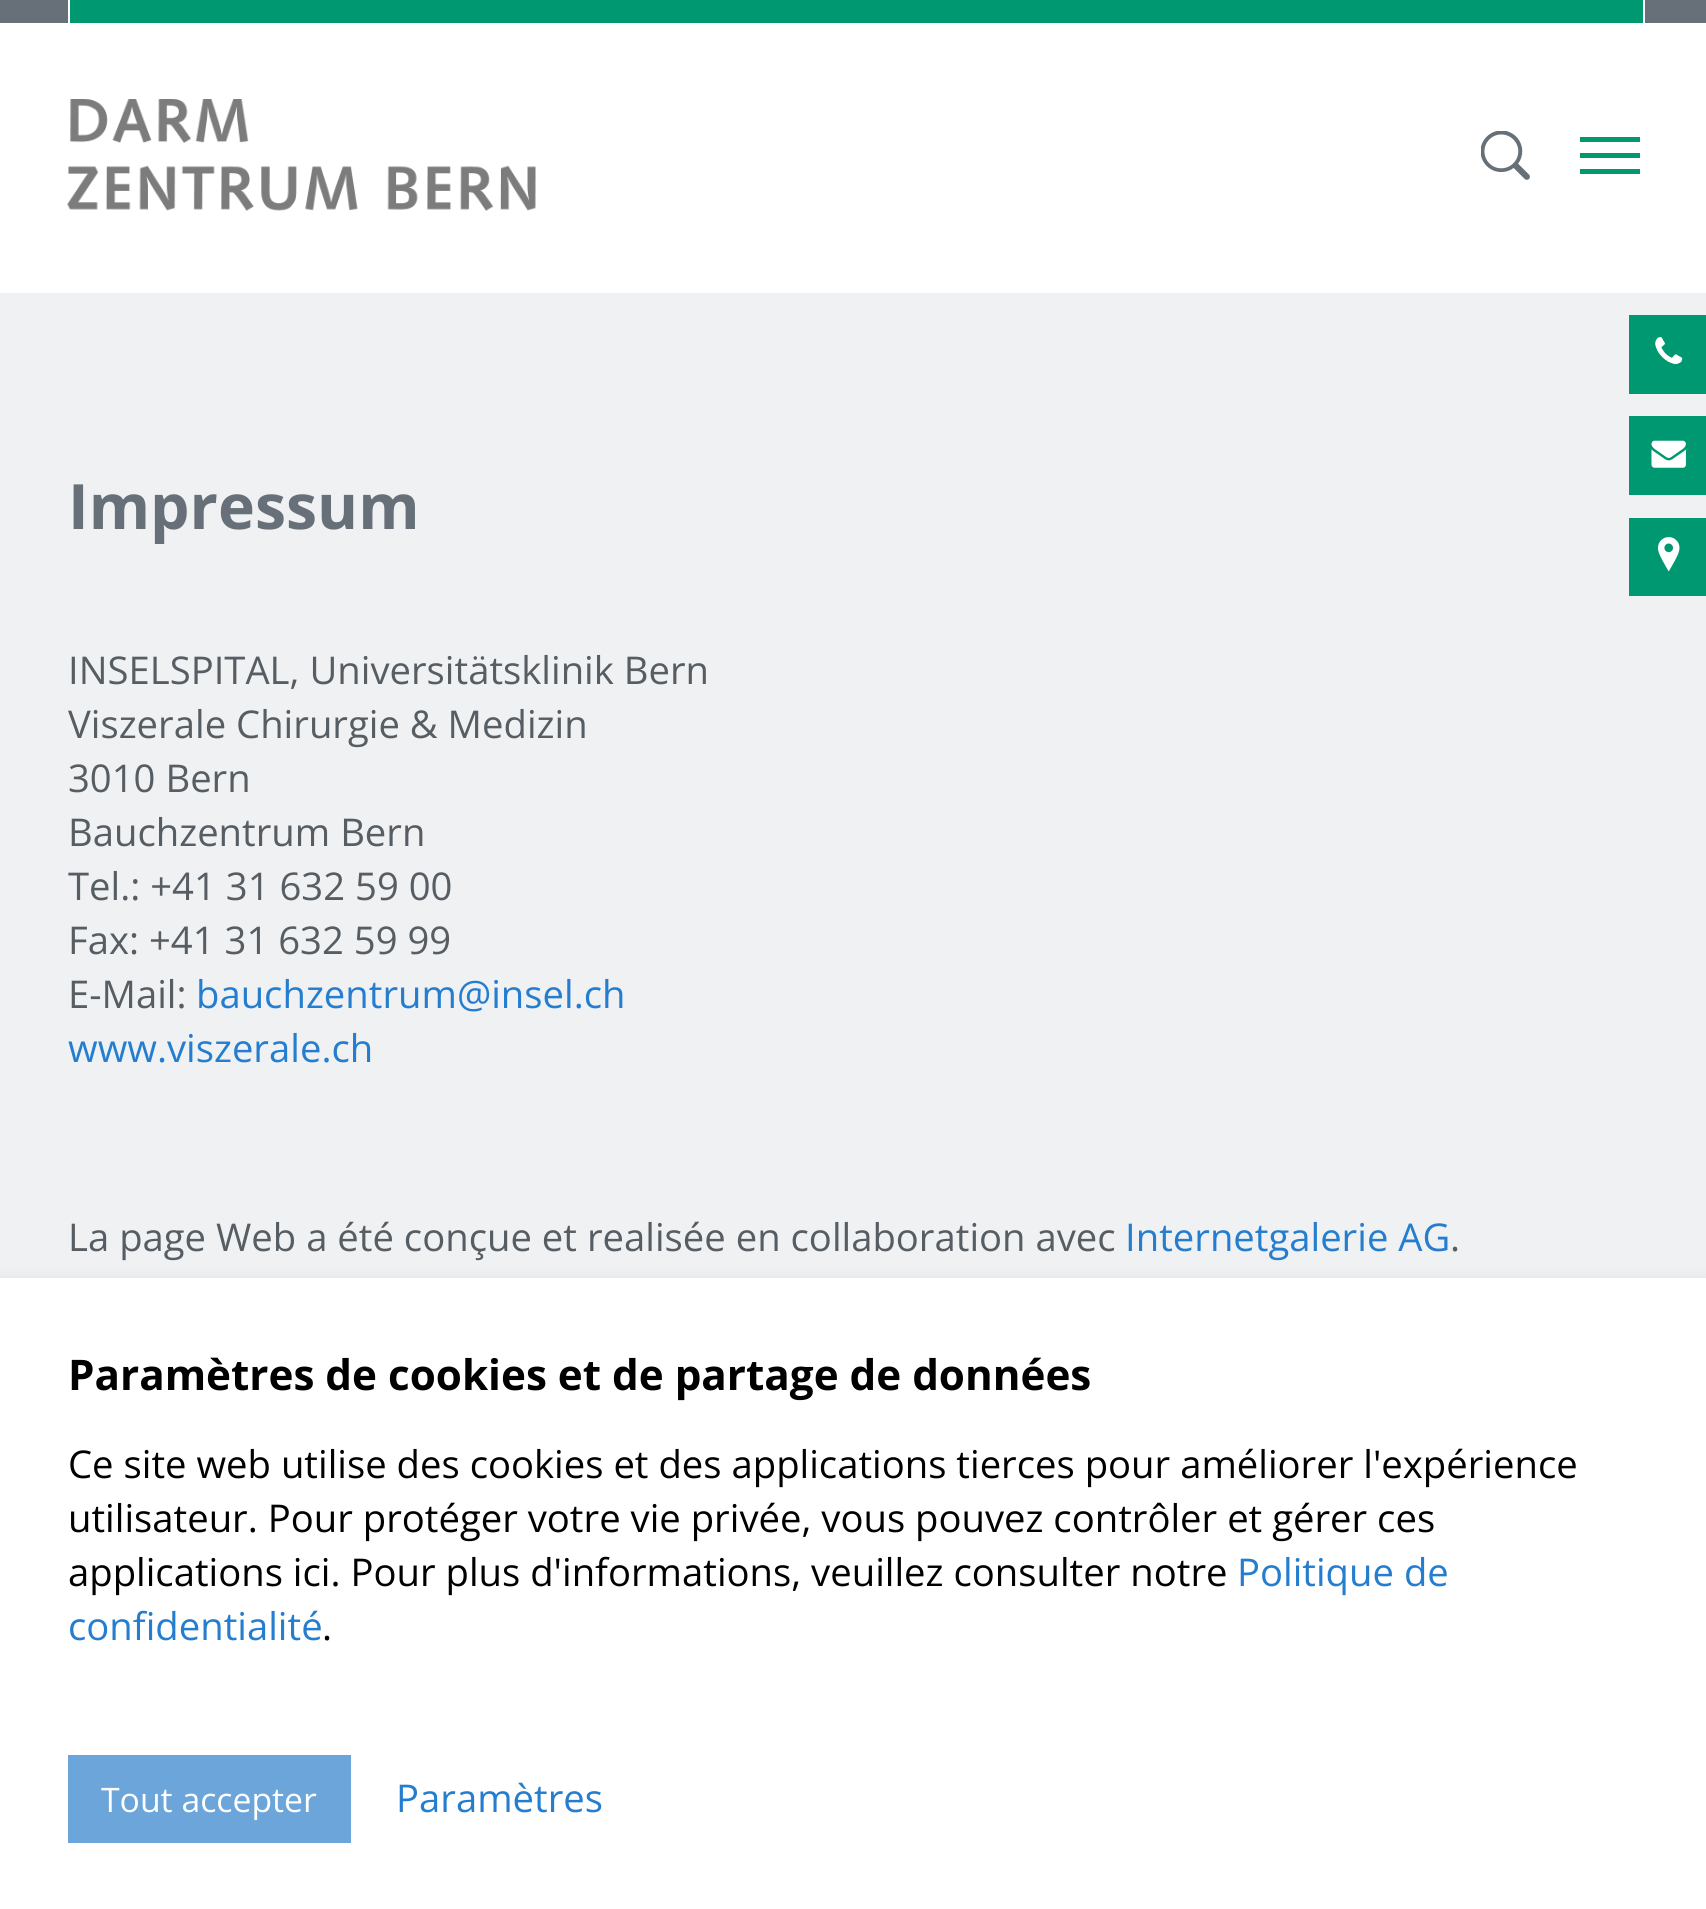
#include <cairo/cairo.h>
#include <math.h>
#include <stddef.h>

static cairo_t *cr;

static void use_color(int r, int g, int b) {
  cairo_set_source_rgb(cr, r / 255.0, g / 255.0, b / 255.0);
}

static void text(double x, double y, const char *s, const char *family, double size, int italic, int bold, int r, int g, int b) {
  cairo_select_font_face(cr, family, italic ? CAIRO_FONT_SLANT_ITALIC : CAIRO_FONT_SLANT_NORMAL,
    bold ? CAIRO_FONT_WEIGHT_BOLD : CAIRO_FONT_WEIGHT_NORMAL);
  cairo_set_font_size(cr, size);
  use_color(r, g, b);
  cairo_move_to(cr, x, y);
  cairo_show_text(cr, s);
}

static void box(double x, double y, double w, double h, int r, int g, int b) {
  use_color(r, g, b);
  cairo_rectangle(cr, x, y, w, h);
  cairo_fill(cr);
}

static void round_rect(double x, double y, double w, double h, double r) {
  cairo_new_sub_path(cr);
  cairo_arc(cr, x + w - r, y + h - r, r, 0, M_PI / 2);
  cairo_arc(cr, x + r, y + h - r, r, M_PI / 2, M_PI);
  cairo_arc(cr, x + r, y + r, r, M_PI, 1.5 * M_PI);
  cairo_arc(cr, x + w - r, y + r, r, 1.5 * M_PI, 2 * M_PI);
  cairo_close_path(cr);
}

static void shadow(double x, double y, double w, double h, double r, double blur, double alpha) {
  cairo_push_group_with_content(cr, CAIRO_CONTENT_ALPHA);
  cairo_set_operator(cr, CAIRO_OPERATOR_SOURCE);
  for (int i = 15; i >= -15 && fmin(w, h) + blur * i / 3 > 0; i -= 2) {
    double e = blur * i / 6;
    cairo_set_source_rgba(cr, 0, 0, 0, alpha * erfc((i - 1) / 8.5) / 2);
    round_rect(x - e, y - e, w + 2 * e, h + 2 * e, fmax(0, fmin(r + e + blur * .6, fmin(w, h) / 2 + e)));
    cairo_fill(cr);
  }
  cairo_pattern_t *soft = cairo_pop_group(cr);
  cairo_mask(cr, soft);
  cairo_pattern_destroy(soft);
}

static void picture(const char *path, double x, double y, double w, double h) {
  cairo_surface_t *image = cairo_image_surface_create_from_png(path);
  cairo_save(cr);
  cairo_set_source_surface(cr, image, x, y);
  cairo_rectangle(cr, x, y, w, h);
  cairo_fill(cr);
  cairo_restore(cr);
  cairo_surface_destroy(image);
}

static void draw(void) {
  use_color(239, 241, 243);
  cairo_paint(cr);
  box(0, 23, 1706, 270, 255, 255, 255);
  box(0, 0, 1706, 23, 103, 112, 120);
  box(70, 0, 1573, 23, 0, 152, 112);
  box(1643, 0, 2, 23, 255, 255, 255);
  box(68, 0, 2, 23, 255, 255, 255);
  picture("img_01.png", 67, 99, 469, 112);
  picture("img_02.png", 1481, 131, 49, 49);
  box(1580, 137, 60, 5, 0, 152, 112);
  box(1580, 153, 60, 5, 0, 152, 112);
  box(1580, 169, 60, 5, 0, 152, 112);
  box(1629, 315, 77, 79, 0, 152, 112);
  picture("img_03.png", 1655, 337, 28, 28);
  box(1629, 416, 77, 79, 0, 152, 112);
  picture("img_04.png", 1651, 440, 35, 28);
  box(1629, 518, 77, 78, 0, 152, 112);
  picture("img_05.png", 1658, 537, 22, 35);
  use_color(0, 0, 0);
  shadow(0, 1289, 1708, 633, 0, 11, 0.2);
  box(0, 1278, 1706, 631, 255, 255, 255);
  box(68, 1755, 283, 88, 108, 165, 218);
  text(68, 529, "Impressum", "Open Sans", 62.5, 0, 1, 103, 112, 120);
  text(68, 684, "INSELSPITAL, Universitätsklinik Bern", "Open Sans", 38.25, 0, 0, 86, 93, 99);
  text(68, 738, "Viszerale Chirurgie & Medizin", "Open Sans", 38.25, 0, 0, 86, 93, 99);
  text(68, 792, "3010 Bern", "Open Sans", 38.25, 0, 0, 86, 93, 99);
  text(68, 846, "Bauchzentrum Bern", "Open Sans", 38.25, 0, 0, 86, 93, 99);
  text(68, 900, "Tel.: +41 31 632 59 00", "Open Sans", 38.25, 0, 0, 86, 93, 99);
  text(68, 954, "Fax: +41 31 632 59 99", "Open Sans", 38.25, 0, 0, 86, 93, 99);
  text(68, 1008, "E-Mail:", "Open Sans", 38.25, 0, 0, 86, 93, 99);
  text(196, 1008, "bauchzentrum@insel.ch", "Open Sans", 38.25, 0, 0, 36, 125, 206);
  text(68, 1062, "www.viszerale.ch", "Open Sans", 38.25, 0, 0, 36, 125, 206);
  text(68, 1251, "La page Web a été conçue et realisée en collaboration avec", "Open Sans", 38.25, 0, 0, 86, 93, 99);
  text(1125, 1251, "Internetgalerie AG", "Open Sans", 38.25, 0, 0, 36, 125, 206);
  text(1450, 1251, ".", "Open Sans", 38.25, 0, 0, 86, 93, 99);
  text(68, 1390, "Paramètres de cookies et de partage de données", "Open Sans", 42.2, 0, 1, 0, 0, 0);
  text(68, 1478, "Ce site web utilise des cookies et des applications tierces pour améliorer l'expérience", "Open Sans", 38.25, 0, 0, 0, 0, 0);
  text(68, 1532, "utilisateur. Pour protéger votre vie privée, vous pouvez contrôler et gérer ces", "Open Sans", 38.25, 0, 0, 0, 0, 0);
  text(68, 1586, "applications ici. Pour plus d'informations, veuillez consulter notre", "Open Sans", 38.25, 0, 0, 0, 0, 0);
  text(1237, 1586, "Politique de", "Open Sans", 38.25, 0, 0, 36, 125, 206);
  text(68, 1640, "confidentialité", "Open Sans", 38.25, 0, 0, 36, 125, 206);
  text(322, 1640, ".", "Open Sans", 38.25, 0, 0, 0, 0, 0);
  text(101, 1812, "Tout accepter", "Open Sans", 33.75, 0, 0, 255, 255, 255);
  text(396, 1812, "Paramètres", "Open Sans", 38.25, 0, 0, 36, 125, 206);
}

int main(void) {
  cairo_surface_t *surface = cairo_image_surface_create(CAIRO_FORMAT_RGB24, 1706, 1909);
  cr = cairo_create(surface);
  cairo_font_options_t *options = cairo_font_options_create();
  cairo_font_options_set_hint_metrics(options, CAIRO_HINT_METRICS_OFF);
  cairo_font_options_set_hint_style(options, CAIRO_HINT_STYLE_NONE);
  cairo_set_font_options(cr, options);
  cairo_set_miter_limit(cr, 4);
  draw();
  cairo_surface_write_to_png(surface, "out.png");
  cairo_font_options_destroy(options);
  cairo_destroy(cr);
  cairo_surface_destroy(surface);
  return 0;
}
